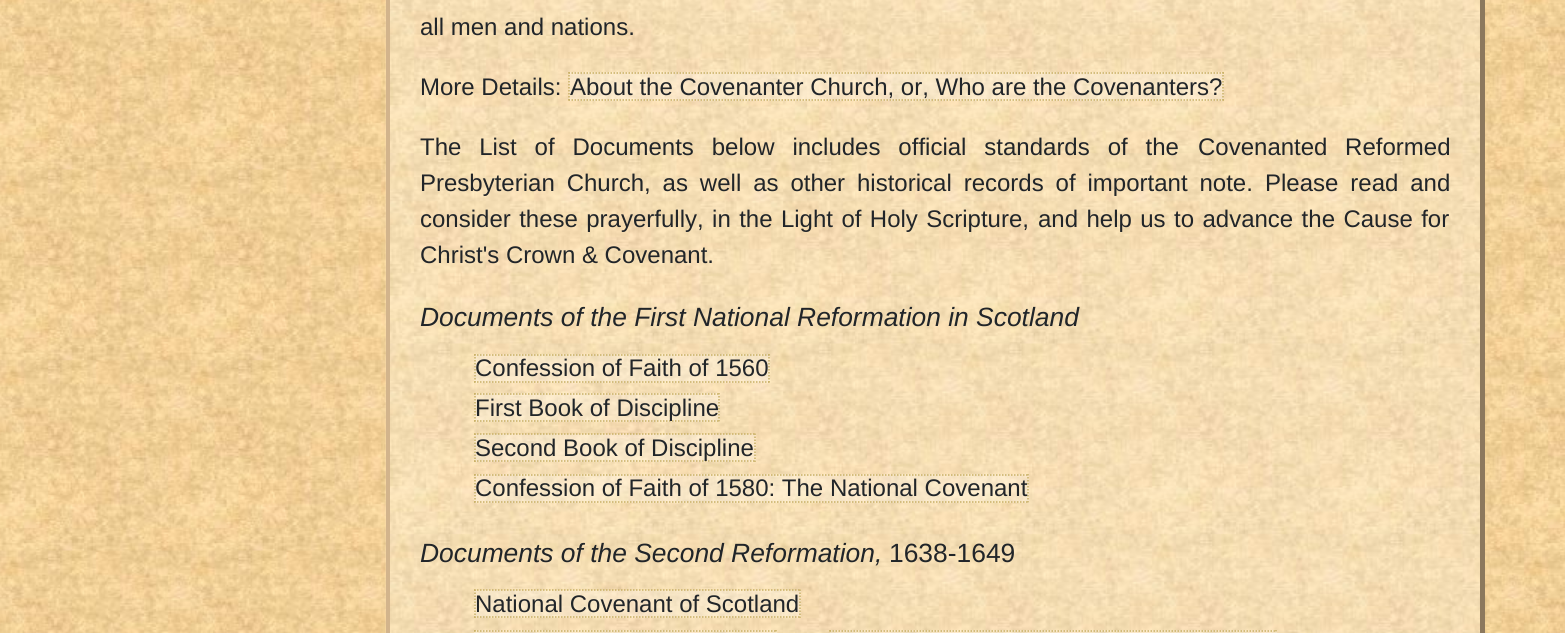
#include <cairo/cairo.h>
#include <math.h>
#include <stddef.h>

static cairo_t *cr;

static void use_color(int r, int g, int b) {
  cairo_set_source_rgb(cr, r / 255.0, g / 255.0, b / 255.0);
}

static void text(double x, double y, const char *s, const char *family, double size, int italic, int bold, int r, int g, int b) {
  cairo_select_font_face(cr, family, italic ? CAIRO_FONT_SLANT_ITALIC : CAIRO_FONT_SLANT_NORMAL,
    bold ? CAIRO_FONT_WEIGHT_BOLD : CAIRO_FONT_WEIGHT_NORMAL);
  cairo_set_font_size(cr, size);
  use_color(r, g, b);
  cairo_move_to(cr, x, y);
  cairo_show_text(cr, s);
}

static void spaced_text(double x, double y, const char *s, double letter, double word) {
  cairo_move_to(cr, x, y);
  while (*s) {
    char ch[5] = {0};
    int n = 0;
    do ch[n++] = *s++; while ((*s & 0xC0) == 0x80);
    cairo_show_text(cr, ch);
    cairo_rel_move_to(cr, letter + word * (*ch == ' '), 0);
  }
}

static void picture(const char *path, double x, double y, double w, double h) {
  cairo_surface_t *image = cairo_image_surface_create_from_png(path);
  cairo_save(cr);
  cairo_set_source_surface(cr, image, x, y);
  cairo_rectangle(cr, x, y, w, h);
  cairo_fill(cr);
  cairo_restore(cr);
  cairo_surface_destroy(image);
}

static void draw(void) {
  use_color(255, 255, 255);
  cairo_paint(cr);
  picture("img_01.png", 0, 0, 1565, 633);
  picture("img_02.png", 385, 0, 1095, 633);
  use_color(140, 120, 93);
  cairo_new_path(cr);
  cairo_move_to(cr, 1485, 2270);
  cairo_line_to(cr, 1485, -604);
  cairo_curve_to(cr, 1485, -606, 1484, -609, 1482, -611);
  cairo_line_to(cr, 1479, -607);
  cairo_line_to(cr, 1480, -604);
  cairo_line_to(cr, 1480, 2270);
  cairo_line_to(cr, 1479, 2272);
  cairo_line_to(cr, 1482, 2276);
  cairo_curve_to(cr, 1484, 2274, 1485, 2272, 1485, 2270);
  cairo_close_path(cr);
  cairo_fill(cr);
  use_color(210, 180, 140);
  cairo_new_path(cr);
  cairo_move_to(cr, 390, -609);
  cairo_line_to(cr, 386, -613);
  cairo_line_to(cr, 386, 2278);
  cairo_line_to(cr, 390, 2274);
  cairo_close_path(cr);
  cairo_fill(cr);
  cairo_set_source_rgba(cr, 1, 1, 1, 0.25);
  cairo_rectangle(cr, 569, 72, 655, 29);
  cairo_fill(cr);
  cairo_new_path(cr);
  cairo_move_to(cr, 568.5, 73);
  cairo_line_to(cr, 1224, 73);
  use_color(200, 175, 100);
  cairo_set_line_width(cr, 1.5);
  cairo_set_dash(cr, (double[]){1.5, 1.5}, 2, 0);
  cairo_stroke(cr);
  cairo_new_path(cr);
  cairo_move_to(cr, 1223, 72);
  cairo_line_to(cr, 1223, 100.5);
  cairo_stroke(cr);
  cairo_new_path(cr);
  cairo_move_to(cr, 568.5, 100);
  cairo_line_to(cr, 1224, 100);
  cairo_stroke(cr);
  cairo_new_path(cr);
  cairo_move_to(cr, 569, 72);
  cairo_line_to(cr, 569, 100.5);
  cairo_stroke(cr);
  cairo_set_source_rgba(cr, 1, 1, 1, 0.25);
  cairo_rectangle(cr, 474, 354, 296, 29);
  cairo_fill(cr);
  cairo_new_path(cr);
  cairo_move_to(cr, 474, 355);
  cairo_line_to(cr, 769.5, 355);
  use_color(200, 175, 100);
  cairo_stroke(cr);
  cairo_new_path(cr);
  cairo_move_to(cr, 769, 354);
  cairo_line_to(cr, 769, 382.5);
  cairo_stroke(cr);
  cairo_new_path(cr);
  cairo_move_to(cr, 474, 382);
  cairo_line_to(cr, 769.5, 382);
  cairo_stroke(cr);
  cairo_new_path(cr);
  cairo_move_to(cr, 475, 354);
  cairo_line_to(cr, 475, 382.5);
  cairo_stroke(cr);
  cairo_set_source_rgba(cr, 1, 1, 1, 0.25);
  cairo_rectangle(cr, 474, 393, 246, 29);
  cairo_fill(cr);
  cairo_new_path(cr);
  cairo_move_to(cr, 474, 394);
  cairo_line_to(cr, 720, 394);
  use_color(200, 175, 100);
  cairo_stroke(cr);
  cairo_new_path(cr);
  cairo_move_to(cr, 719, 393);
  cairo_line_to(cr, 719, 421.5);
  cairo_stroke(cr);
  cairo_new_path(cr);
  cairo_move_to(cr, 474, 421);
  cairo_line_to(cr, 720, 421);
  cairo_stroke(cr);
  cairo_new_path(cr);
  cairo_move_to(cr, 475, 393);
  cairo_line_to(cr, 475, 421.5);
  cairo_stroke(cr);
  cairo_set_source_rgba(cr, 1, 1, 1, 0.25);
  cairo_rectangle(cr, 474, 434, 282, 28);
  cairo_fill(cr);
  cairo_new_path(cr);
  cairo_move_to(cr, 474, 434);
  cairo_line_to(cr, 756, 434);
  use_color(200, 175, 100);
  cairo_stroke(cr);
  cairo_new_path(cr);
  cairo_move_to(cr, 755, 433.5);
  cairo_line_to(cr, 755, 462);
  cairo_stroke(cr);
  cairo_new_path(cr);
  cairo_move_to(cr, 474, 461);
  cairo_line_to(cr, 756, 461);
  cairo_stroke(cr);
  cairo_new_path(cr);
  cairo_move_to(cr, 475, 433.5);
  cairo_line_to(cr, 475, 462);
  cairo_stroke(cr);
  cairo_set_source_rgba(cr, 1, 1, 1, 0.25);
  cairo_rectangle(cr, 474, 474, 555, 29);
  cairo_fill(cr);
  cairo_new_path(cr);
  cairo_move_to(cr, 474, 475);
  cairo_line_to(cr, 1029, 475);
  use_color(200, 175, 100);
  cairo_stroke(cr);
  cairo_new_path(cr);
  cairo_move_to(cr, 1028, 474);
  cairo_line_to(cr, 1028, 502.5);
  cairo_stroke(cr);
  cairo_new_path(cr);
  cairo_move_to(cr, 474, 502);
  cairo_line_to(cr, 1029, 502);
  cairo_stroke(cr);
  cairo_new_path(cr);
  cairo_move_to(cr, 475, 474);
  cairo_line_to(cr, 475, 502.5);
  cairo_stroke(cr);
  cairo_set_source_rgba(cr, 1, 1, 1, 0.25);
  cairo_rectangle(cr, 474, 590, 327, 28);
  cairo_fill(cr);
  cairo_new_path(cr);
  cairo_move_to(cr, 474, 590);
  cairo_line_to(cr, 801, 590);
  use_color(200, 175, 100);
  cairo_stroke(cr);
  cairo_new_path(cr);
  cairo_move_to(cr, 800, 589.5);
  cairo_line_to(cr, 800, 618);
  cairo_stroke(cr);
  cairo_new_path(cr);
  cairo_move_to(cr, 474, 617);
  cairo_line_to(cr, 801, 617);
  cairo_stroke(cr);
  cairo_new_path(cr);
  cairo_move_to(cr, 475, 589.5);
  cairo_line_to(cr, 475, 618);
  cairo_stroke(cr);
  cairo_set_source_rgba(cr, 1, 1, 1, 0.25);
  cairo_rectangle(cr, 474, 630, 303, 3);
  cairo_fill(cr);
  cairo_new_path(cr);
  cairo_move_to(cr, 474, 631);
  cairo_line_to(cr, 777, 631);
  use_color(200, 175, 100);
  cairo_stroke(cr);
  cairo_new_path(cr);
  cairo_move_to(cr, 475, 630);
  cairo_line_to(cr, 475, 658.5);
  cairo_stroke(cr);
  cairo_new_path(cr);
  cairo_move_to(cr, 776, 630);
  cairo_line_to(cr, 776, 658.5);
  cairo_stroke(cr);
  cairo_set_source_rgba(cr, 1, 1, 1, 0.25);
  cairo_rectangle(cr, 830, 630, 447, 3);
  cairo_fill(cr);
  cairo_new_path(cr);
  cairo_move_to(cr, 829.5, 631);
  cairo_line_to(cr, 1276.5, 631);
  use_color(200, 175, 100);
  cairo_stroke(cr);
  cairo_new_path(cr);
  cairo_move_to(cr, 830, 630);
  cairo_line_to(cr, 830, 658.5);
  cairo_stroke(cr);
  cairo_new_path(cr);
  cairo_move_to(cr, 1276, 630);
  cairo_line_to(cr, 1276, 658.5);
  cairo_stroke(cr);
  text(420, 35, "all men and nations.", "Liberation Sans", 24, 0, 0, 33, 37, 41);
  text(420, 95, "More Details:", "Liberation Sans", 24, 0, 0, 33, 37, 41);
  text(570, 95, "About the Covenanter Church, or, Who are the Covenanters?", "Liberation Sans", 24, 0, 0, 33, 37, 41);
  spaced_text(420, 155, "The List of Documents below includes official standards of the", 0, 11.25);
  spaced_text(1198, 155, "Covenanted Reformed", 0, 11);
  spaced_text(420, 191, "Presbyterian Church, as well as other historical records of important note.", 0, 5.25);
  spaced_text(1265, 191, "Please read and", 0, 5.25);
  spaced_text(420, 227, "consider these prayerfully, in the Light of Holy Scripture,", 0, 1.75);
  spaced_text(1038, 227, "and help us to advance the Cause for", 0, 1.75);
  text(420, 263, "Christ's Crown & Covenant.", "Liberation Sans", 24, 0, 0, 33, 37, 41);
  text(420, 326, "Documents of the First National Reformation in Scotland", "Liberation Sans", 26.4, 1, 0, 33, 37, 41);
  text(475, 376, "Confession of Faith of 1560", "Liberation Sans", 24, 0, 0, 33, 37, 41);
  text(475, 416, "First Book of Discipline", "Liberation Sans", 24, 0, 0, 33, 37, 41);
  text(475, 456, "Second Book of Discipline", "Liberation Sans", 24, 0, 0, 33, 37, 41);
  text(475, 496, "Confession of Faith of 1580: The National Covenant", "Liberation Sans", 24, 0, 0, 33, 37, 41);
  text(420, 562, "Documents of the Second Reformation,", "Liberation Sans", 26.4, 1, 0, 33, 37, 41);
  text(889, 562, "1638-1649", "Liberation Sans", 26.4, 0, 0, 33, 37, 41);
  text(475, 612, "National Covenant of Scotland", "Liberation Sans", 24, 0, 0, 33, 37, 41);
}

int main(void) {
  cairo_surface_t *surface = cairo_image_surface_create(CAIRO_FORMAT_RGB24, 1565, 633);
  cr = cairo_create(surface);
  cairo_font_options_t *options = cairo_font_options_create();
  cairo_font_options_set_hint_metrics(options, CAIRO_HINT_METRICS_OFF);
  cairo_font_options_set_hint_style(options, CAIRO_HINT_STYLE_NONE);
  cairo_set_font_options(cr, options);
  cairo_set_miter_limit(cr, 4);
  draw();
  cairo_surface_write_to_png(surface, "out.png");
  cairo_font_options_destroy(options);
  cairo_destroy(cr);
  cairo_surface_destroy(surface);
  return 0;
}
